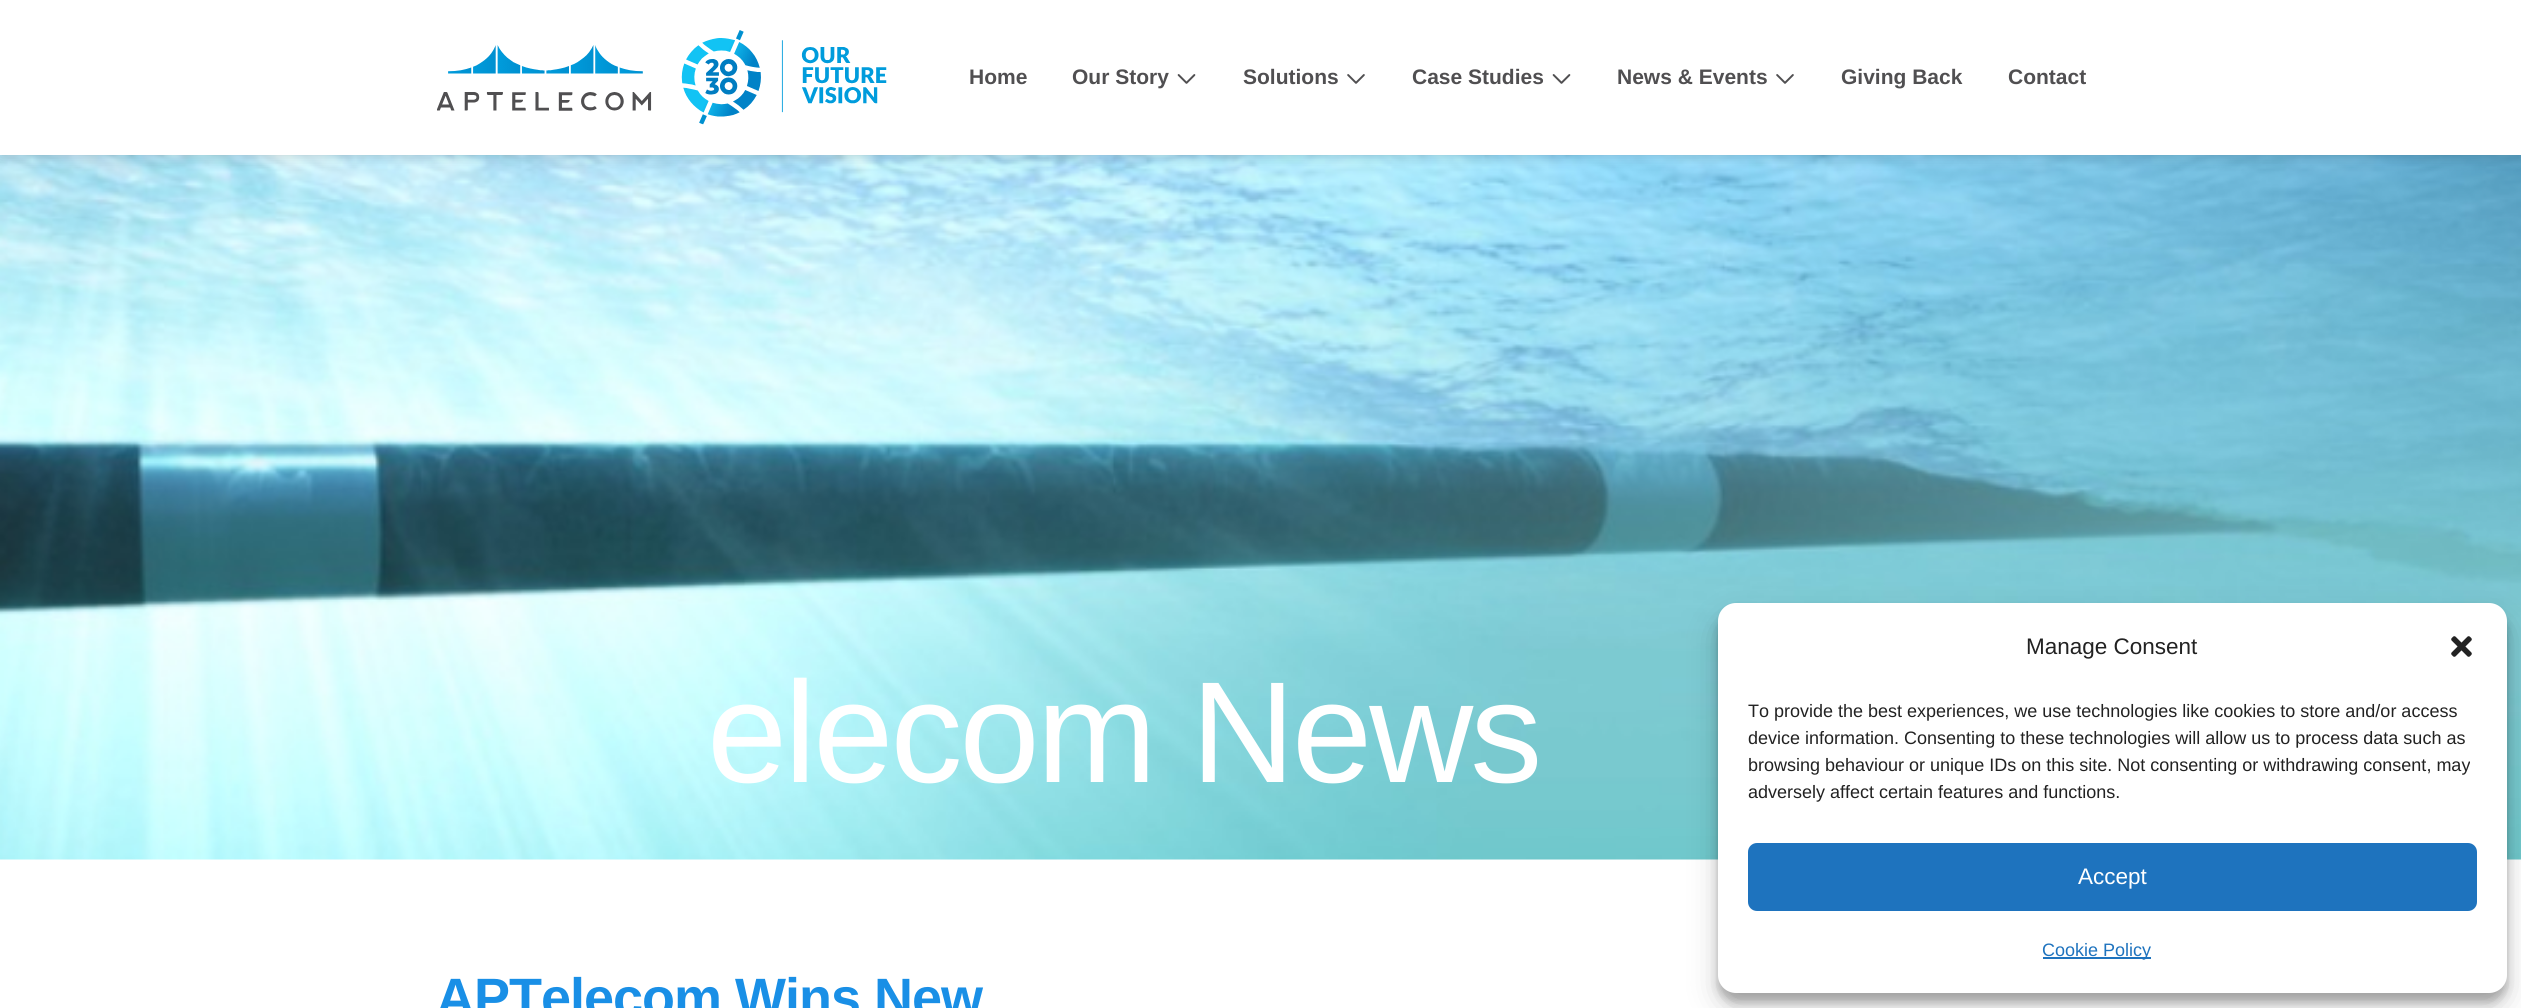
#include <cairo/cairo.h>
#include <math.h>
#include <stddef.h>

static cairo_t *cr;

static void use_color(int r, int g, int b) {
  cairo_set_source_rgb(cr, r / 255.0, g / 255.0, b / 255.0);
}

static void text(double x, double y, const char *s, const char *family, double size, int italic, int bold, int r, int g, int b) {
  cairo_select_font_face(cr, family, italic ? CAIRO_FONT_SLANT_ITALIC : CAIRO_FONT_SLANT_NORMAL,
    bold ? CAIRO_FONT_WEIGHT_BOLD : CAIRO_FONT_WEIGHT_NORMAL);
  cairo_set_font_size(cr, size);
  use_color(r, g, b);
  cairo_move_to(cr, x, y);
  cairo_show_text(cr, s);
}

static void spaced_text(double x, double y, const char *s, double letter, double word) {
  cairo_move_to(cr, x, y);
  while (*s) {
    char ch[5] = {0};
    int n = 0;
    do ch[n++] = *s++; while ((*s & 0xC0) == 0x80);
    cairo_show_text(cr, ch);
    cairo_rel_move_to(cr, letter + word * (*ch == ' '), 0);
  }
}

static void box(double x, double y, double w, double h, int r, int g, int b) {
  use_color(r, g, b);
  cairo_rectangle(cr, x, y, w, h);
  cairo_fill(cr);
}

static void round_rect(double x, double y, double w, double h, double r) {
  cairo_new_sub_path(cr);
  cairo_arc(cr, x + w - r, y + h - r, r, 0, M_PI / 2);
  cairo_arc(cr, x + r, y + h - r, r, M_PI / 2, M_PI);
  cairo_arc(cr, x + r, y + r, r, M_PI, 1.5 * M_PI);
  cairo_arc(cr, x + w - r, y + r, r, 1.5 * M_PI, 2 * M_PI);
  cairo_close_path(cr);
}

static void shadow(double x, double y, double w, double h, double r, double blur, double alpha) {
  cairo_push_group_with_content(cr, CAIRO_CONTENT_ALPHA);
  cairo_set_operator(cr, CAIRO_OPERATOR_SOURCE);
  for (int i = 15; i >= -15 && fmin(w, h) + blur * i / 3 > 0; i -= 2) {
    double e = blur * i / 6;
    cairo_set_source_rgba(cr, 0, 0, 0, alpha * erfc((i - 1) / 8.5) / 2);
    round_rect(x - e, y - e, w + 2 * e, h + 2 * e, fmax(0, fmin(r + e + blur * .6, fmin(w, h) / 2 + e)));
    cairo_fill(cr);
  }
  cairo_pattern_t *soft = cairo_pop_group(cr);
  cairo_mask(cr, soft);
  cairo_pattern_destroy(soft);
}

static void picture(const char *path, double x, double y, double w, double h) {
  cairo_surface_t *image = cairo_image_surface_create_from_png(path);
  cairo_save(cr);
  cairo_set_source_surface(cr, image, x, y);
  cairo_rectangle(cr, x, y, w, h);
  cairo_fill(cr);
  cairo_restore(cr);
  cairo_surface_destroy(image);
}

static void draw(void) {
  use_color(255, 255, 255);
  cairo_paint(cr);
  picture("img_04.png", 0, 155, 2521, 705);
  use_color(0, 0, 0);
  shadow(0, 0, 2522, 155, 0, 7.5, 0.2);
  box(0, 0, 2521, 155, 255, 255, 255);
  picture("img_01.png", 437, 30, 450, 95);
  picture("img_02.png", 1177, 74, 19, 10);
  picture("img_03.png", 1347, 74, 18, 10);
  picture("img_02.png", 1552, 74, 19, 10);
  picture("img_03.png", 1776, 74, 18, 10);
  use_color(0, 0, 0);
  shadow(1718, 612, 789, 390, 18, 4.5, 0.23);
  shadow(1718, 618, 789, 390, 18, 15, 0.19);
  use_color(255, 255, 255);
  round_rect(1718, 603, 789, 390, 18);
  cairo_fill(cr);
  picture("img_05.png", 2451, 636, 21, 21);
  use_color(30, 115, 190);
  round_rect(1749, 844, 727, 66, 8);
  cairo_fill_preserve(cr);
  cairo_stroke(cr);
  box(2043, 957, 108, 2, 30, 115, 190);
  text(969, 84, "Home", "Liberation Sans", 21, 0, 1, 80, 79, 81);
  text(1072, 84, "Our Story", "Liberation Sans", 21, 0, 1, 80, 79, 81);
  text(1243, 84, "Solutions", "Liberation Sans", 21, 0, 1, 80, 79, 81);
  text(1412, 84, "Case Studies", "Liberation Sans", 21, 0, 1, 80, 79, 81);
  text(1617, 84, "News & Events", "Liberation Sans", 21, 0, 1, 80, 79, 81);
  text(1841, 84, "Giving Back", "Liberation Sans", 21, 0, 1, 80, 79, 81);
  text(2008, 84, "Contact", "Liberation Sans", 21, 0, 1, 80, 79, 81);
  cairo_select_font_face(cr, "Liberation Sans", CAIRO_FONT_SLANT_NORMAL, CAIRO_FONT_WEIGHT_NORMAL);
  cairo_set_font_size(cr, 144);
  use_color(255, 255, 255);
  spaced_text(707, 782, "elecom News", -2.9, 0);
  cairo_select_font_face(cr, "Liberation Sans", CAIRO_FONT_SLANT_NORMAL, CAIRO_FONT_WEIGHT_BOLD);
  cairo_set_font_size(cr, 54);
  use_color(25, 143, 230);
  spaced_text(436, 1016, "APTelecom Wins New", -1, 0);
  text(2026, 654, "Manage Consent", "Liberation Sans", 22.5, 0, 0, 34, 34, 34);
  text(1748, 717, "To provide the best experiences, we use technologies like cookies to store and/or access", "Liberation Sans", 18, 0, 0, 34, 34, 34);
  text(1748, 744, "device information. Consenting to these technologies will allow us to process data such as", "Liberation Sans", 18, 0, 0, 34, 34, 34);
  text(1748, 771, "browsing behaviour or unique IDs on this site. Not consenting or withdrawing consent, may", "Liberation Sans", 18, 0, 0, 34, 34, 34);
  text(1748, 798, "adversely affect certain features and functions.", "Liberation Sans", 18, 0, 0, 34, 34, 34);
  text(2078, 884, "Accept", "Liberation Sans", 22.5, 0, 0, 255, 255, 255);
  text(2042, 956, "Cookie Policy", "Liberation Sans", 18, 0, 0, 30, 115, 190);
}

int main(void) {
  cairo_surface_t *surface = cairo_image_surface_create(CAIRO_FORMAT_RGB24, 2521, 1008);
  cr = cairo_create(surface);
  cairo_font_options_t *options = cairo_font_options_create();
  cairo_font_options_set_hint_metrics(options, CAIRO_HINT_METRICS_OFF);
  cairo_font_options_set_hint_style(options, CAIRO_HINT_STYLE_NONE);
  cairo_set_font_options(cr, options);
  cairo_set_miter_limit(cr, 4);
  draw();
  cairo_surface_write_to_png(surface, "out.png");
  cairo_font_options_destroy(options);
  cairo_destroy(cr);
  cairo_surface_destroy(surface);
  return 0;
}
